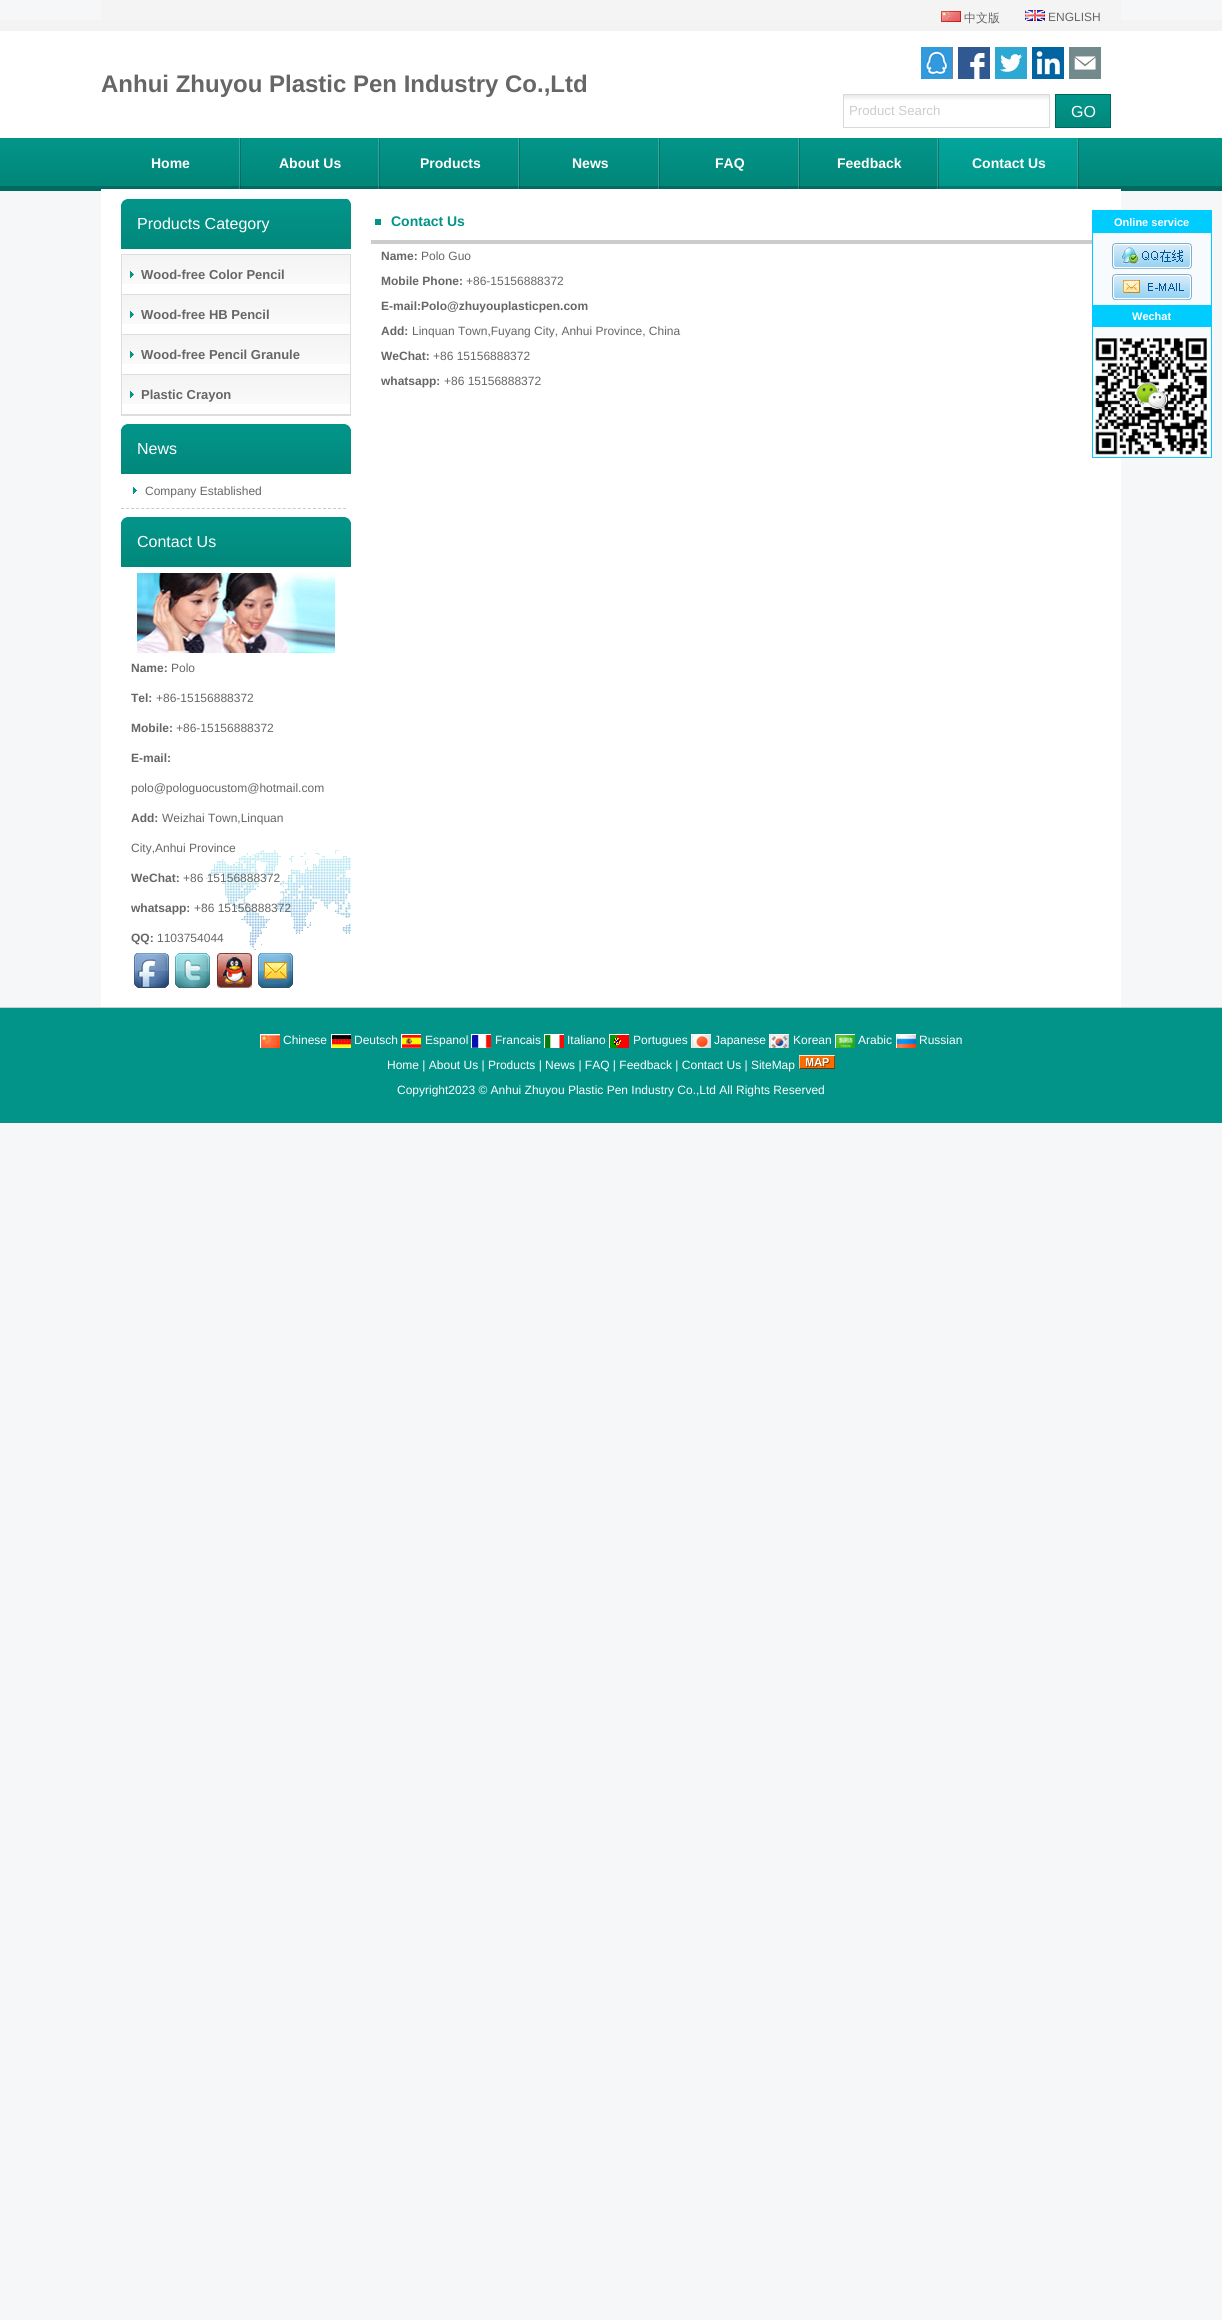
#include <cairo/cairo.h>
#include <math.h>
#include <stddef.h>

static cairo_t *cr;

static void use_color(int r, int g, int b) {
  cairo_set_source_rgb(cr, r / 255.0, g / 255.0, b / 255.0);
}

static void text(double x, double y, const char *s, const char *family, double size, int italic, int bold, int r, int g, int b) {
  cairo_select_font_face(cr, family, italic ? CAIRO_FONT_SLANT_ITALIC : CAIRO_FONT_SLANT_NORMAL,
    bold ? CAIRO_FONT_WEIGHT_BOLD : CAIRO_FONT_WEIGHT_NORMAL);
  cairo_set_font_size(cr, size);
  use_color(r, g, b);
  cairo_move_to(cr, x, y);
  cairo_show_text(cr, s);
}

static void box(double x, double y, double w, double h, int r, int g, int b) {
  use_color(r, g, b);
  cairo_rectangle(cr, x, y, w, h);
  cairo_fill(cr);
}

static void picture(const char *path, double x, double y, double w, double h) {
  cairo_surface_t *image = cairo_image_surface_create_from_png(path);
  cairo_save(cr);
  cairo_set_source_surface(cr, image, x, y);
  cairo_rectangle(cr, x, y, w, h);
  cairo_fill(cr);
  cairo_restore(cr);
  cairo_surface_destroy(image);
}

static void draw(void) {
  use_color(246, 247, 248);
  cairo_paint(cr);
  picture("img_01.png", 0, 20, 1222, 171);
  box(101, 0, 1020, 20, 244, 244, 244);
  picture("img_02.png", 941, 11, 20, 11);
  picture("img_03.png", 1025, 10, 20, 11);
  picture("img_04.png", 921, 47, 32, 32);
  picture("img_05.png", 958, 47, 32, 32);
  picture("img_06.png", 995, 47, 32, 32);
  picture("img_07.png", 1032, 47, 32, 32);
  picture("img_08.png", 1069, 47, 32, 32);
  picture("img_09.png", 844, 95, 205, 5);
  cairo_rectangle(cr, 843.5, 94.5, 206, 33);
  use_color(217, 217, 217);
  cairo_set_line_width(cr, 1);
  cairo_stroke(cr);
  picture("img_10.png", 1056, 95, 54, 32);
  cairo_rectangle(cr, 1055.5, 94.5, 55, 33);
  use_color(1, 102, 93);
  cairo_stroke(cr);
  box(0, 186, 1222, 1, 1, 107, 97);
  picture("img_11.png", 239, 138, 2, 51);
  picture("img_12.png", 378, 138, 2, 51);
  picture("img_11.png", 518, 138, 2, 51);
  picture("img_11.png", 658, 138, 2, 51);
  picture("img_11.png", 798, 138, 2, 51);
  picture("img_12.png", 937, 138, 2, 51);
  picture("img_11.png", 1077, 138, 2, 51);
  picture("img_13.png", 939, 138, 138, 51);
  box(101, 189, 1020, 818, 255, 255, 255);
  picture("img_14.png", 121, 199, 230, 50);
  picture("img_15.png", 121, 199, 6, 6);
  picture("img_16.png", 347, 199, 4, 5);
  cairo_rectangle(cr, 121.5, 254.5, 229, 161);
  use_color(221, 221, 221);
  cairo_stroke(cr);
  picture("img_17.png", 122, 255, 228, 29);
  box(122, 294, 228, 1, 221, 221, 221);
  picture("img_18.png", 130, 271, 4, 7);
  picture("img_17.png", 122, 295, 228, 29);
  box(122, 334, 228, 1, 221, 221, 221);
  picture("img_18.png", 130, 311, 4, 7);
  picture("img_17.png", 122, 335, 228, 29);
  box(122, 374, 228, 1, 221, 221, 221);
  picture("img_18.png", 130, 351, 4, 7);
  picture("img_17.png", 122, 375, 228, 29);
  box(122, 414, 228, 1, 221, 221, 221);
  picture("img_18.png", 130, 391, 4, 7);
  picture("img_14.png", 121, 424, 230, 50);
  picture("img_15.png", 121, 424, 6, 6);
  picture("img_19.png", 345, 424, 6, 6);
  cairo_new_path(cr);
  cairo_move_to(cr, 121, 508.5);
  cairo_line_to(cr, 346, 508.5);
  use_color(203, 203, 201);
  cairo_set_dash(cr, (double[]){3, 2.05}, 2, 0);
  cairo_stroke(cr);
  picture("img_20.png", 133, 487, 4, 7);
  picture("img_21.png", 203, 850, 148, 100);
  picture("img_14.png", 121, 517, 230, 50);
  picture("img_15.png", 121, 517, 6, 6);
  picture("img_19.png", 345, 517, 6, 6);
  picture("img_22.png", 137, 573, 198, 80);
  picture("img_23.png", 134, 953, 35, 35);
  picture("img_24.png", 175, 953, 35, 35);
  picture("img_25.png", 217, 953, 35, 35);
  picture("img_26.png", 258, 953, 35, 35);
  box(371, 240, 721, 4, 204, 204, 204);
  picture("img_27.png", 374, 218, 13, 13);
  box(1093, 233, 118, 104, 248, 251, 254);
  cairo_rectangle(cr, 1092.5, 210.5, 119, 247);
  use_color(0, 204, 255);
  cairo_set_dash(cr, NULL, 0, 0);
  cairo_stroke(cr);
  box(1093, 211, 118, 22, 0, 204, 255);
  picture("img_28.png", 1112, 243, 80, 26);
  picture("img_29.png", 1112, 274, 80, 26);
  box(1093, 305, 118, 22, 0, 204, 255);
  picture("img_30.png", 1093, 337, 118, 120);
  box(0, 1008, 1222, 115, 2, 148, 136);
  box(0, 1007, 1222, 1, 204, 204, 204);
  picture("img_31.png", 260, 1034, 20, 14);
  picture("img_32.png", 331, 1034, 20, 14);
  picture("img_33.png", 401, 1034, 20, 14);
  picture("img_34.png", 471, 1034, 20, 14);
  picture("img_35.png", 544, 1034, 20, 14);
  picture("img_36.png", 609, 1034, 20, 14);
  picture("img_37.png", 691, 1034, 20, 14);
  picture("img_38.png", 769, 1034, 20, 14);
  picture("img_39.png", 835, 1034, 20, 14);
  picture("img_40.png", 896, 1034, 20, 14);
  picture("img_41.png", 799, 1055, 36, 14);
  text(101, 92, "Anhui Zhuyou Plastic Pen Industry Co.,Ltd", "Liberation Sans", 24, 0, 1, 102, 102, 102);
  text(964, 22, "中文版", "WenQuanYi Zen Hei Medium", 12, 0, 0, 102, 102, 102);
  text(1048, 21, "ENGLISH", "Liberation Sans", 12, 0, 0, 102, 102, 102);
  text(849, 115, "Product Search", "Liberation Sans", 13.25, 0, 0, 204, 204, 204);
  text(1071, 117, "GO", "Liberation Sans", 16, 0, 0, 255, 255, 255);
  text(151, 168, "Home", "Liberation Sans", 14, 0, 1, 255, 255, 255);
  text(279, 168, "About Us", "Liberation Sans", 14, 0, 1, 255, 255, 255);
  text(420, 168, "Products", "Liberation Sans", 14, 0, 1, 255, 255, 255);
  text(572, 168, "News", "Liberation Sans", 14, 0, 1, 255, 255, 255);
  text(715, 168, "FAQ", "Liberation Sans", 14, 0, 1, 255, 255, 255);
  text(837, 168, "Feedback", "Liberation Sans", 14, 0, 1, 255, 255, 255);
  text(972, 168, "Contact Us", "Liberation Sans", 14, 0, 1, 255, 255, 255);
  text(137, 229, "Products Category", "Liberation Sans", 16, 0, 0, 255, 255, 255);
  text(141, 279, "Wood-free Color Pencil", "Liberation Sans", 13, 0, 1, 102, 102, 102);
  text(141, 319, "Wood-free HB Pencil", "Liberation Sans", 13, 0, 1, 102, 102, 102);
  text(141, 359, "Wood-free Pencil Granule", "Liberation Sans", 13, 0, 1, 102, 102, 102);
  text(141, 399, "Plastic Crayon", "Liberation Sans", 13, 0, 1, 102, 102, 102);
  text(137, 454, "News", "Liberation Sans", 16, 0, 0, 255, 255, 255);
  text(145, 495, "Company Established", "Liberation Sans", 12, 0, 0, 102, 102, 102);
  text(137, 547, "Contact Us", "Liberation Sans", 16, 0, 0, 255, 255, 255);
  text(131, 672, "Name:", "Liberation Sans", 12, 0, 1, 102, 102, 102);
  text(171, 672, "Polo", "Liberation Sans", 12, 0, 0, 102, 102, 102);
  text(131, 702, "Tel:", "Liberation Sans", 12, 0, 1, 102, 102, 102);
  text(156, 702, "+86-15156888372", "Liberation Sans", 12, 0, 0, 102, 102, 102);
  text(131, 732, "Mobile:", "Liberation Sans", 12, 0, 1, 102, 102, 102);
  text(176, 732, "+86-15156888372", "Liberation Sans", 12, 0, 0, 102, 102, 102);
  text(131, 762, "E-mail:", "Liberation Sans", 12, 0, 1, 102, 102, 102);
  text(131, 792, "polo@pologuocustom@hotmail.com", "Liberation Sans", 12, 0, 0, 102, 102, 102);
  text(131, 822, "Add:", "Liberation Sans", 12, 0, 1, 102, 102, 102);
  text(162, 822, "Weizhai Town,Linquan", "Liberation Sans", 12, 0, 0, 102, 102, 102);
  text(131, 852, "City,Anhui Province", "Liberation Sans", 12, 0, 0, 102, 102, 102);
  text(131, 882, "WeChat:", "Liberation Sans", 12, 0, 1, 102, 102, 102);
  text(183, 882, "+86 15156888372", "Liberation Sans", 12, 0, 0, 102, 102, 102);
  text(131, 912, "whatsapp:", "Liberation Sans", 12, 0, 1, 102, 102, 102);
  text(194, 912, "+86 15156888372", "Liberation Sans", 12, 0, 0, 102, 102, 102);
  text(131, 942, "QQ:", "Liberation Sans", 12, 0, 1, 102, 102, 102);
  text(157, 942, "1103754044", "Liberation Sans", 12, 0, 0, 102, 102, 102);
  text(391, 226, "Contact Us", "Liberation Sans", 14, 0, 1, 2, 148, 136);
  text(381, 260, "Name:", "Liberation Sans", 12, 0, 1, 102, 102, 102);
  text(421, 260, "Polo Guo", "Liberation Sans", 12, 0, 0, 102, 102, 102);
  text(381, 285, "Mobile Phone:", "Liberation Sans", 12, 0, 1, 102, 102, 102);
  text(466, 285, "+86-15156888372", "Liberation Sans", 12, 0, 0, 102, 102, 102);
  text(381, 310, "E-mail:Polo@zhuyouplasticpen.com", "Liberation Sans", 12, 0, 1, 102, 102, 102);
  text(381, 335, "Add:", "Liberation Sans", 12, 0, 1, 102, 102, 102);
  text(412, 335, "Linquan Town,Fuyang City, Anhui Province, China", "Liberation Sans", 12, 0, 0, 102, 102, 102);
  text(381, 360, "WeChat:", "Liberation Sans", 12, 0, 1, 102, 102, 102);
  text(433, 360, "+86 15156888372", "Liberation Sans", 12, 0, 0, 102, 102, 102);
  text(381, 385, "whatsapp:", "Liberation Sans", 12, 0, 1, 102, 102, 102);
  text(444, 385, "+86 15156888372", "Liberation Sans", 12, 0, 0, 102, 102, 102);
  text(1114, 226, "Online service", "Liberation Sans", 11, 0, 1, 255, 255, 255);
  text(1132, 320, "Wechat", "Liberation Sans", 11, 0, 1, 255, 255, 255);
  text(283, 1044, "Chinese", "Liberation Sans", 12, 0, 0, 255, 255, 255);
  text(354, 1044, "Deutsch", "Liberation Sans", 12, 0, 0, 255, 255, 255);
  text(425, 1044, "Espanol", "Liberation Sans", 12, 0, 0, 255, 255, 255);
  text(495, 1044, "Francais", "Liberation Sans", 12, 0, 0, 255, 255, 255);
  text(567, 1044, "Italiano", "Liberation Sans", 12, 0, 0, 255, 255, 255);
  text(633, 1044, "Portugues", "Liberation Sans", 12, 0, 0, 255, 255, 255);
  text(714, 1044, "Japanese", "Liberation Sans", 12, 0, 0, 255, 255, 255);
  text(793, 1044, "Korean", "Liberation Sans", 12, 0, 0, 255, 255, 255);
  text(858, 1044, "Arabic", "Liberation Sans", 12, 0, 0, 255, 255, 255);
  text(919, 1044, "Russian", "Liberation Sans", 12, 0, 0, 255, 255, 255);
  text(387, 1069, "Home | About Us | Products | News | FAQ | Feedback | Contact Us | SiteMap", "Liberation Sans", 12, 0, 0, 255, 255, 255);
  text(397, 1094, "Copyright2023 © Anhui Zhuyou Plastic Pen Industry Co.,Ltd All Rights Reserved", "Liberation Sans", 12, 0, 0, 255, 255, 255);
}

int main(void) {
  cairo_surface_t *surface = cairo_image_surface_create(CAIRO_FORMAT_RGB24, 1222, 2320);
  cr = cairo_create(surface);
  cairo_font_options_t *options = cairo_font_options_create();
  cairo_font_options_set_hint_metrics(options, CAIRO_HINT_METRICS_OFF);
  cairo_font_options_set_hint_style(options, CAIRO_HINT_STYLE_NONE);
  cairo_set_font_options(cr, options);
  cairo_set_miter_limit(cr, 4);
  draw();
  cairo_surface_write_to_png(surface, "out.png");
  cairo_font_options_destroy(options);
  cairo_destroy(cr);
  cairo_surface_destroy(surface);
  return 0;
}
